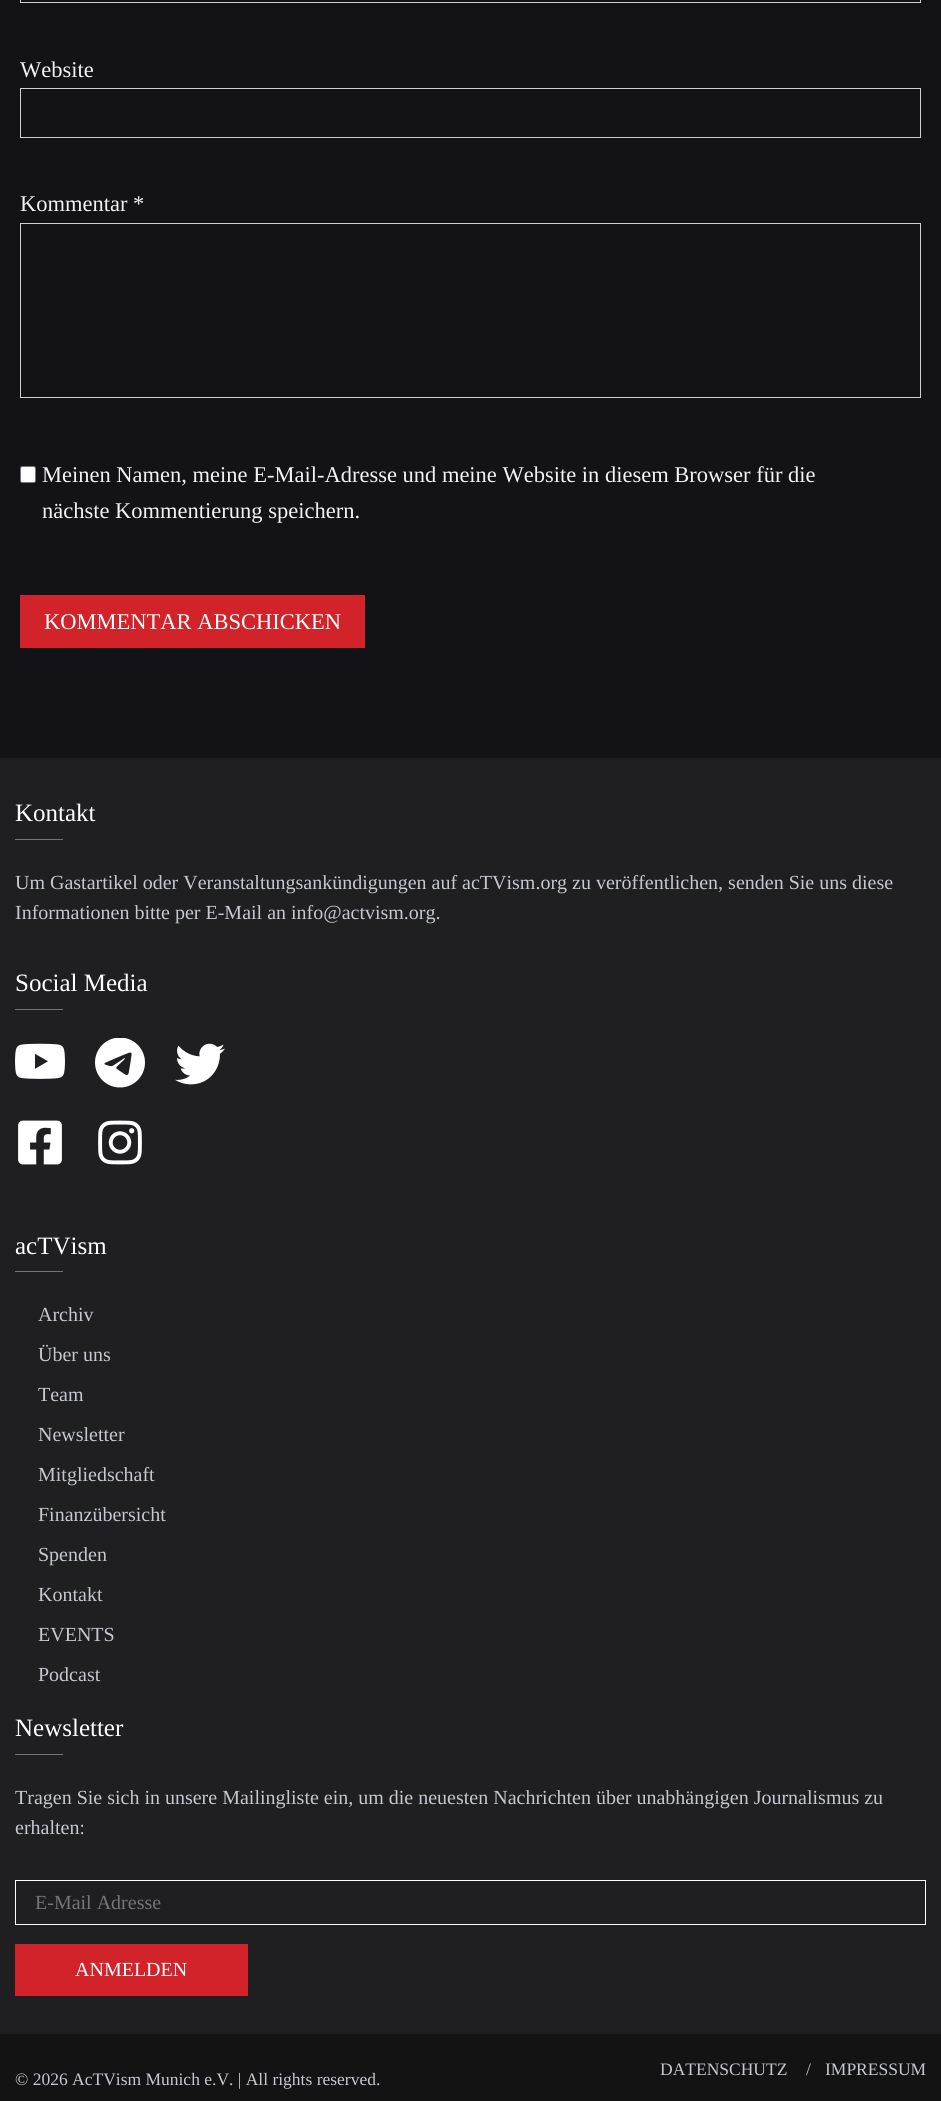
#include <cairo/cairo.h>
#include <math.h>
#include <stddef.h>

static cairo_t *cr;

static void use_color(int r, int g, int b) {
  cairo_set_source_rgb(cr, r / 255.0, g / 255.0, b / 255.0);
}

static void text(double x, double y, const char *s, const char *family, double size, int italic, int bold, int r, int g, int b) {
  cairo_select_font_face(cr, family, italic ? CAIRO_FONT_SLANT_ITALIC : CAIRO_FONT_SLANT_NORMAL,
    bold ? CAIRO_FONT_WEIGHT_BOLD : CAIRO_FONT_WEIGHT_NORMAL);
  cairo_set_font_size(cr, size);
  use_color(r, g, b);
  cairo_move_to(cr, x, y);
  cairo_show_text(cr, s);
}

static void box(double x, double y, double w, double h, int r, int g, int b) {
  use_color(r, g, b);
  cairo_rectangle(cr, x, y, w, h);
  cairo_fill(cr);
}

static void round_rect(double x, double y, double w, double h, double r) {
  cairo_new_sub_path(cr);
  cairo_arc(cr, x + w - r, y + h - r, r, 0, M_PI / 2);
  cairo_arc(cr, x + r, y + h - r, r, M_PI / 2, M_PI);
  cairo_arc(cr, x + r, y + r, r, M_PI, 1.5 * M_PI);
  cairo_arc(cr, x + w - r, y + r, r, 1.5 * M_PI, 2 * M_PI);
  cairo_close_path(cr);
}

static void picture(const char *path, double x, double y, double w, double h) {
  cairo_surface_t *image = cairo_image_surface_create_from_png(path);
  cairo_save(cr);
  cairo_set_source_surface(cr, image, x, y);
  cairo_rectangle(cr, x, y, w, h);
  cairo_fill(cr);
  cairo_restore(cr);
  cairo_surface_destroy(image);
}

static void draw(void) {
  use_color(19, 19, 23);
  cairo_paint(cr);
  cairo_rectangle(cr, 20.5, -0.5, 900, 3);
  use_color(208, 208, 209);
  cairo_set_line_width(cr, 1);
  cairo_stroke(cr);
  cairo_rectangle(cr, 20.5, 88.5, 900, 49);
  cairo_stroke(cr);
  cairo_rectangle(cr, 20.5, 223.5, 900, 174);
  cairo_stroke(cr);
  use_color(255, 255, 255);
  round_rect(20.5, 466.5, 15, 16, 2);
  cairo_fill_preserve(cr);
  use_color(118, 118, 118);
  cairo_stroke(cr);
  box(20, 595, 345, 53, 210, 34, 42);
  box(0, 758, 941, 1276, 31, 31, 33);
  box(15, 839, 48, 1, 112, 114, 124);
  box(15, 1009, 48, 1, 112, 114, 124);
  picture("img_01.png", 15, 1043, 50, 36);
  picture("img_02.png", 95, 1038, 50, 50);
  picture("img_03.png", 175, 1043, 50, 42);
  picture("img_04.png", 18, 1120, 44, 45);
  picture("img_05.png", 98, 1120, 44, 45);
  box(15, 1271, 48, 1, 112, 114, 124);
  box(15, 1754, 48, 1, 112, 114, 124);
  cairo_rectangle(cr, 15.5, 1880.5, 910, 44);
  use_color(255, 255, 255);
  cairo_stroke(cr);
  box(15, 1944, 233, 52, 210, 34, 42);
  box(0, 2034, 941, 67, 19, 19, 19);
  text(20, 77, "Website", "Liberation Serif", 22.5, 0, 0, 241, 243, 249);
  text(20, 211, "Kommentar *", "Liberation Serif", 22.5, 0, 0, 241, 243, 249);
  text(42, 482, "Meinen Namen, meine E-Mail-Adresse und meine Website in diesem Browser für die", "Liberation Serif", 22.5, 0, 0, 241, 243, 249);
  text(42, 518, "nächste Kommentierung speichern.", "Liberation Serif", 22.5, 0, 0, 241, 243, 249);
  text(44, 629, "KOMMENTAR ABSCHICKEN", "Liberation Serif", 22.5, 0, 0, 255, 255, 255);
  text(15, 821, "Kontakt", "Liberation Serif", 25, 0, 0, 255, 255, 255);
  text(15, 889, "Um Gastartikel oder Veranstaltungsankündigungen auf acTVism.org zu veröffentlichen, senden Sie uns diese", "Liberation Serif", 20, 0, 0, 198, 200, 209);
  text(15, 919, "Informationen bitte per E-Mail an info@actvism.org.", "Liberation Serif", 20, 0, 0, 198, 200, 209);
  text(15, 991, "Social Media", "Liberation Serif", 25, 0, 0, 255, 255, 255);
  text(15, 1254, "acTVism", "Liberation Serif", 25, 0, 0, 255, 255, 255);
  text(38, 1321, "Archiv", "Liberation Serif", 20, 0, 0, 198, 200, 209);
  text(38, 1361, "Über uns", "Liberation Serif", 20, 0, 0, 198, 200, 209);
  text(38, 1401, "Team", "Liberation Serif", 20, 0, 0, 198, 200, 209);
  text(38, 1441, "Newsletter", "Liberation Serif", 20, 0, 0, 198, 200, 209);
  text(38, 1481, "Mitgliedschaft", "Liberation Serif", 20, 0, 0, 198, 200, 209);
  text(38, 1521, "Finanzübersicht", "Liberation Serif", 20, 0, 0, 198, 200, 209);
  text(38, 1561, "Spenden", "Liberation Serif", 20, 0, 0, 198, 200, 209);
  text(38, 1601, "Kontakt", "Liberation Serif", 20, 0, 0, 198, 200, 209);
  text(38, 1641, "EVENTS", "Liberation Serif", 20, 0, 0, 198, 200, 209);
  text(38, 1681, "Podcast", "Liberation Serif", 20, 0, 0, 198, 200, 209);
  text(15, 1736, "Newsletter", "Liberation Serif", 25, 0, 0, 255, 255, 255);
  text(15, 1804, "Tragen Sie sich in unsere Mailingliste ein, um die neuesten Nachrichten über unabhängigen Journalismus zu", "Liberation Serif", 20, 0, 0, 198, 200, 209);
  text(15, 1834, "erhalten:", "Liberation Serif", 20, 0, 0, 198, 200, 209);
  text(35, 1909, "E-Mail Adresse", "Liberation Serif", 20, 0, 0, 117, 117, 117);
  text(75, 1976, "ANMELDEN", "Liberation Serif", 20, 0, 0, 255, 255, 255);
  text(660, 2075, "DATENSCHUTZ", "Liberation Serif", 17.5, 0, 0, 198, 200, 209);
  text(806, 2075, "/", "Liberation Serif", 17.5, 0, 0, 198, 200, 209);
  text(825, 2075, "IMPRESSUM", "Liberation Serif", 17.5, 0, 0, 198, 200, 209);
  text(15, 2085, "© 2026 AcTVism Munich e.V. | All rights reserved.", "Liberation Serif", 17.5, 0, 0, 198, 200, 209);
}

int main(void) {
  cairo_surface_t *surface = cairo_image_surface_create(CAIRO_FORMAT_RGB24, 941, 2101);
  cr = cairo_create(surface);
  cairo_font_options_t *options = cairo_font_options_create();
  cairo_font_options_set_hint_metrics(options, CAIRO_HINT_METRICS_OFF);
  cairo_font_options_set_hint_style(options, CAIRO_HINT_STYLE_NONE);
  cairo_set_font_options(cr, options);
  cairo_set_miter_limit(cr, 4);
  draw();
  cairo_surface_write_to_png(surface, "out.png");
  cairo_font_options_destroy(options);
  cairo_destroy(cr);
  cairo_surface_destroy(surface);
  return 0;
}
